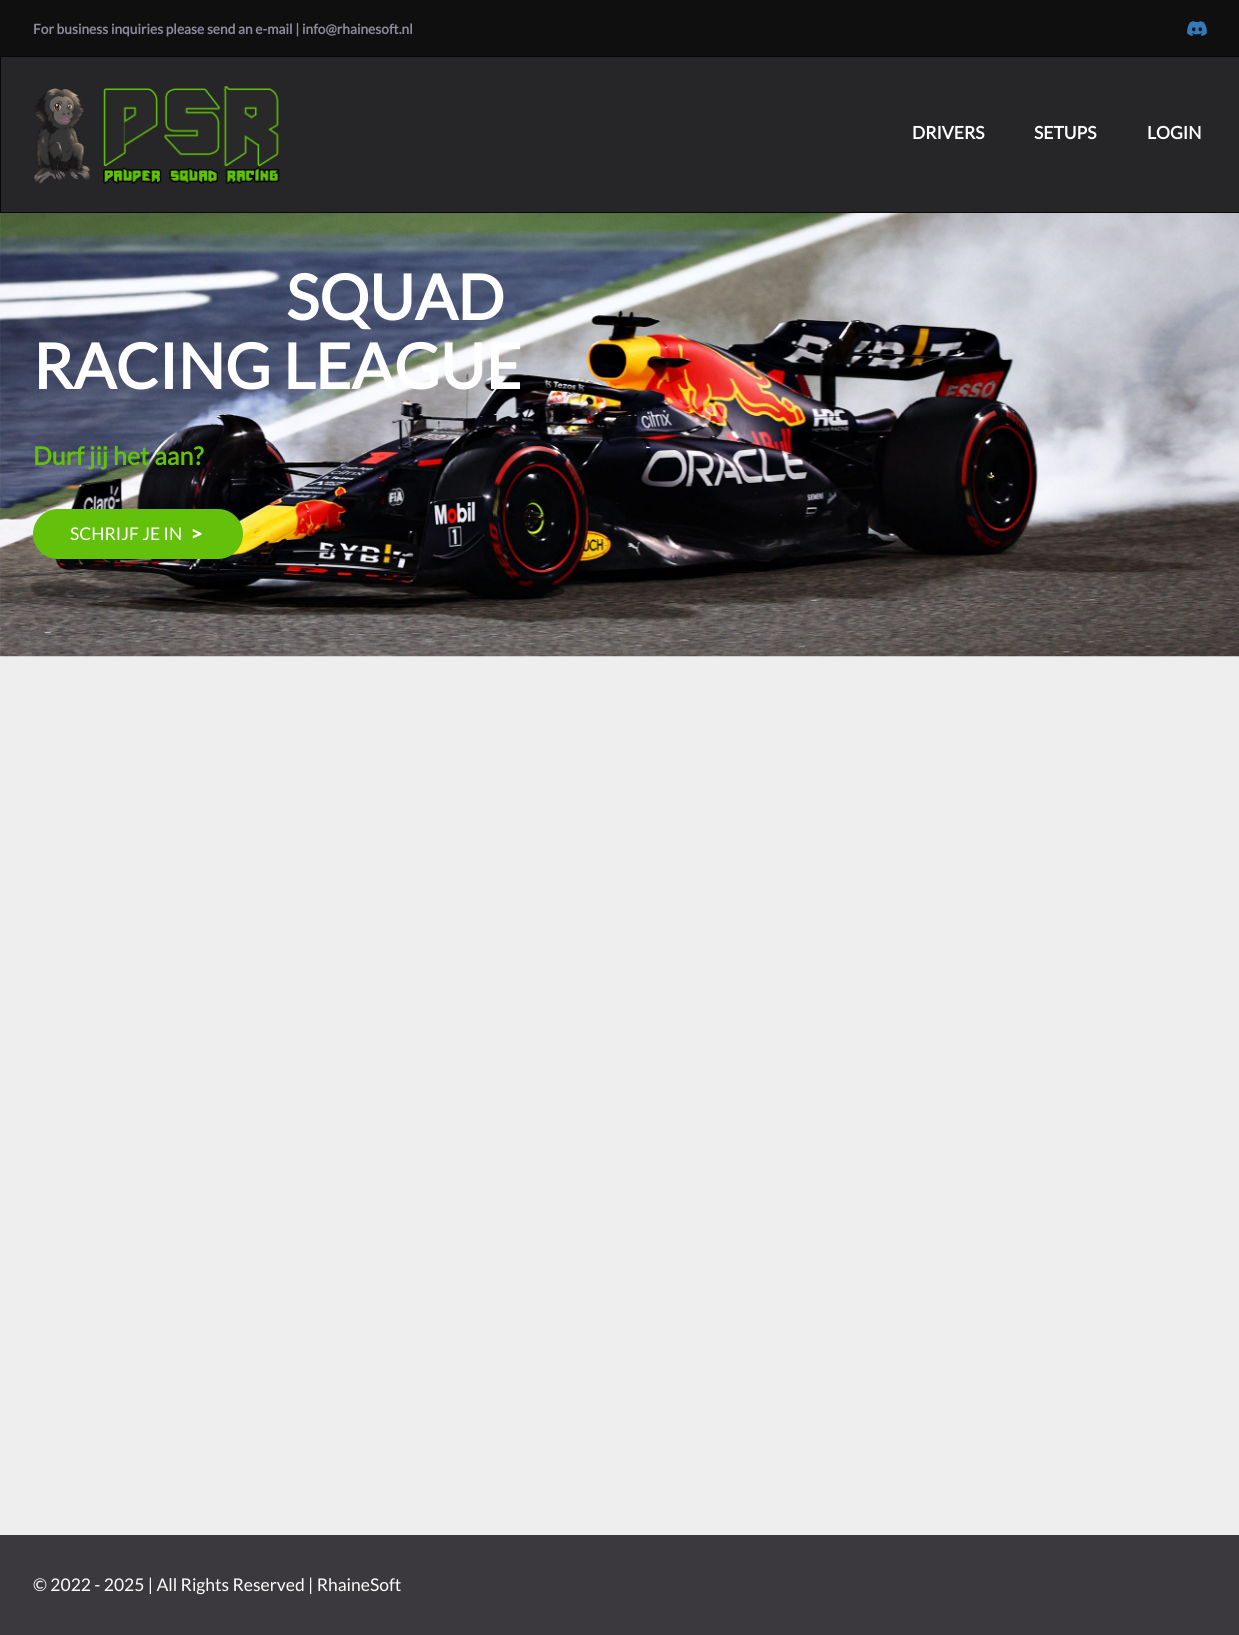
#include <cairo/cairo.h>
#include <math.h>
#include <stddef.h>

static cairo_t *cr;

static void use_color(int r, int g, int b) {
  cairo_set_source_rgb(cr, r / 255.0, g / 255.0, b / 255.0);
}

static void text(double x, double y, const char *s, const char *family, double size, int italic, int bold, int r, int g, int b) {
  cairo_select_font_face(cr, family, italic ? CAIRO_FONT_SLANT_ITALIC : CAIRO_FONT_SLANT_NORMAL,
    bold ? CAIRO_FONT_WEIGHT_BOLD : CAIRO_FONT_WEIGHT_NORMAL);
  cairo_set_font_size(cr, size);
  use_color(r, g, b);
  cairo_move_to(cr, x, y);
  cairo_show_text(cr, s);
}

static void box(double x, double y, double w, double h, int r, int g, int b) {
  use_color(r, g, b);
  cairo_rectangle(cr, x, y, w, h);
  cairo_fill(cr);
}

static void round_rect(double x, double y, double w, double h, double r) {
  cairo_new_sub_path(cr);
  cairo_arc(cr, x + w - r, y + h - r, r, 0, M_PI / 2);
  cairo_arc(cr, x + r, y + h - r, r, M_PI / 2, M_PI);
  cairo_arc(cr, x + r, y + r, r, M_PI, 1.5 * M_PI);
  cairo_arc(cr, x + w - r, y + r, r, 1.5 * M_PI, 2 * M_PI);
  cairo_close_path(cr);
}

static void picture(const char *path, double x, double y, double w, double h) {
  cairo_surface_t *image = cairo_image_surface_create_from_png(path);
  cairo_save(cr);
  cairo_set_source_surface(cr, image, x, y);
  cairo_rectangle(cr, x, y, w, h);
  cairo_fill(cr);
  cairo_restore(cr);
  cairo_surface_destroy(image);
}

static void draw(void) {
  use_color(15, 15, 16);
  cairo_paint(cr);
  picture("img_01.png", 1187, 21, 20, 15);
  use_color(38, 37, 40);
  cairo_rectangle(cr, 0.5, 56.5, 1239, 156);
  cairo_fill_preserve(cr);
  use_color(8, 8, 8);
  cairo_set_line_width(cr, 1);
  cairo_stroke(cr);
  picture("img_02.png", 33, 86, 247, 98);
  box(0, 656, 1239, 879, 238, 238, 238);
  picture("img_03.png", 0, 213, 1239, 444);
  use_color(99, 193, 12);
  round_rect(33, 509, 210, 50, 25);
  cairo_fill(cr);
  box(0, 1535, 1239, 100, 59, 57, 61);
  text(33, 34, "For business inquiries please send an e-mail | info@rhainesoft.nl", "Lato", 13.75, 0, 1, 143, 140, 160);
  text(912, 139, "DRIVERS", "Lato", 17.5, 0, 1, 255, 255, 255);
  text(1034, 139, "SETUPS", "Lato", 17.5, 0, 1, 255, 255, 255);
  text(1147, 139, "LOGIN", "Lato", 17.5, 0, 1, 255, 255, 255);
  text(286, 320, "SQUAD", "Lato", 62.5, 0, 1, 255, 255, 255);
  text(33, 389, "RACING LEAGUE", "Lato", 62.5, 0, 1, 255, 255, 255);
  text(33, 465, "Durf jij het aan?", "Lato", 25, 0, 1, 99, 193, 12);
  text(70, 540, "SCHRIJF JE IN", "Lato", 17.5, 0, 0, 255, 255, 255);
  text(192, 540, ">", "Noto Sans Black", 17.5, 0, 0, 255, 255, 255);
  text(33, 1591, "© 2022 - 2025 | All Rights Reserved | RhaineSoft", "Lato", 17.5, 0, 0, 255, 255, 255);
}

int main(void) {
  cairo_surface_t *surface = cairo_image_surface_create(CAIRO_FORMAT_RGB24, 1239, 1635);
  cr = cairo_create(surface);
  cairo_font_options_t *options = cairo_font_options_create();
  cairo_font_options_set_hint_metrics(options, CAIRO_HINT_METRICS_OFF);
  cairo_font_options_set_hint_style(options, CAIRO_HINT_STYLE_NONE);
  cairo_set_font_options(cr, options);
  cairo_set_miter_limit(cr, 4);
  draw();
  cairo_surface_write_to_png(surface, "out.png");
  cairo_font_options_destroy(options);
  cairo_destroy(cr);
  cairo_surface_destroy(surface);
  return 0;
}
